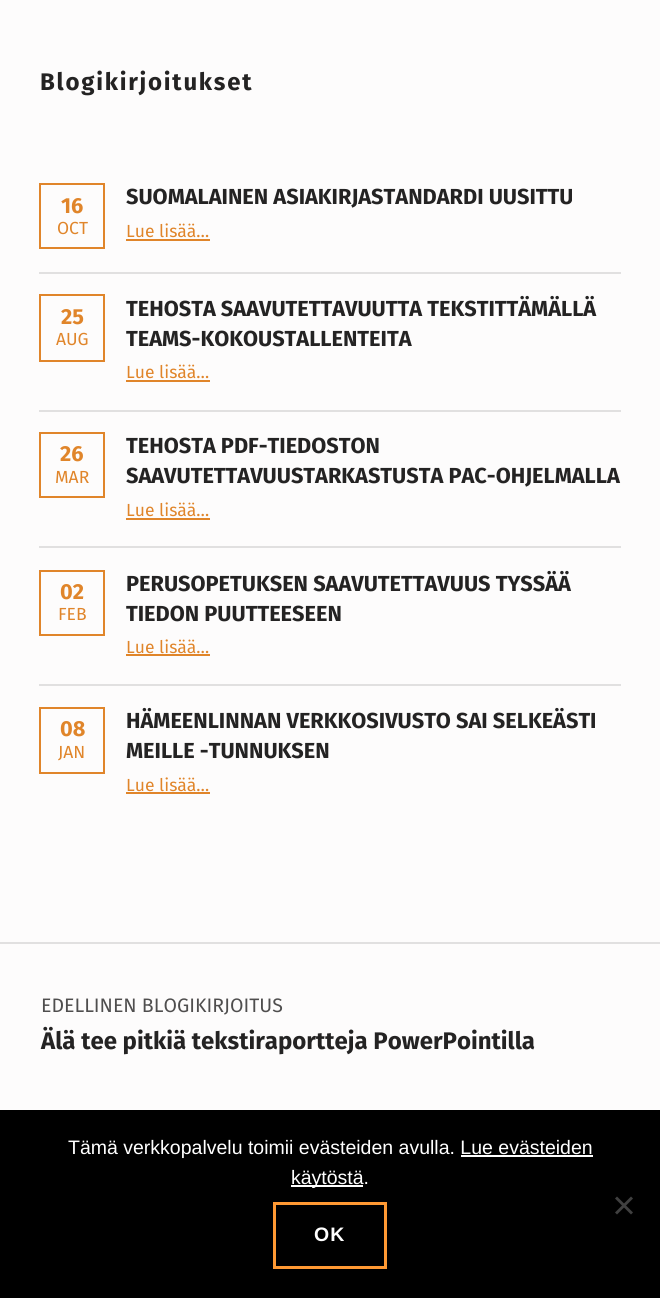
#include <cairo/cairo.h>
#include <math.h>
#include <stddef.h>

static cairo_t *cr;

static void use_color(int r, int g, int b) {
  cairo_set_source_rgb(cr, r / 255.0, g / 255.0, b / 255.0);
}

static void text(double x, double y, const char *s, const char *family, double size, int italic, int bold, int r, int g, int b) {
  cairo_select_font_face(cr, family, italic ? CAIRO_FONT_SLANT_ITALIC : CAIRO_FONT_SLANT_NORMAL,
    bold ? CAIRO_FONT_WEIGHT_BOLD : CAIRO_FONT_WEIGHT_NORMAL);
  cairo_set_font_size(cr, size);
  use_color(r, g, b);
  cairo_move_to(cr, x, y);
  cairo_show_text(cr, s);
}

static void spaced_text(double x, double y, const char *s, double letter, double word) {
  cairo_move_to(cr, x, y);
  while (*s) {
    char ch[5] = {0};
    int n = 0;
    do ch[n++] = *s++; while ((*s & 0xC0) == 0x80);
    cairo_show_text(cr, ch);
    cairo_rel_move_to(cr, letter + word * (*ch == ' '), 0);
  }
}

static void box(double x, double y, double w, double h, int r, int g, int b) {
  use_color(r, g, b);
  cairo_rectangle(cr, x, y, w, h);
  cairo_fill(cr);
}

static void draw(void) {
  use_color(253, 252, 252);
  cairo_paint(cr);
  cairo_rectangle(cr, 40, 184, 64, 64);
  use_color(224, 133, 42);
  cairo_stroke(cr);
  box(126, 239, 84, 2, 224, 133, 42);
  box(39, 272, 582, 2, 225, 224, 224);
  cairo_rectangle(cr, 40, 295, 64, 66);
  use_color(224, 133, 42);
  cairo_stroke(cr);
  box(126, 380, 84, 2, 224, 133, 42);
  box(39, 410, 582, 2, 225, 224, 224);
  cairo_rectangle(cr, 40, 433, 64, 64);
  use_color(224, 133, 42);
  cairo_stroke(cr);
  box(126, 518, 84, 2, 224, 133, 42);
  box(39, 546, 582, 2, 225, 224, 224);
  cairo_rectangle(cr, 40, 571, 64, 64);
  use_color(224, 133, 42);
  cairo_stroke(cr);
  box(126, 654, 84, 2, 224, 133, 42);
  box(39, 684, 582, 2, 225, 224, 224);
  cairo_rectangle(cr, 40, 708, 64, 65);
  use_color(224, 133, 42);
  cairo_stroke(cr);
  box(126, 792, 84, 2, 224, 133, 42);
  box(0, 942, 660, 2, 225, 224, 224);
  box(0, 1110, 660, 188, 0, 0, 0);
  box(461, 1155, 132, 2, 255, 255, 255);
  box(291, 1185, 72, 2, 255, 255, 255);
  use_color(64, 64, 64);
  cairo_new_path(cr);
  cairo_move_to(cr, 631, 1196.5);
  cairo_line_to(cr, 633, 1198.5);
  cairo_line_to(cr, 617, 1214.5);
  cairo_line_to(cr, 615, 1212.5);
  cairo_close_path(cr);
  cairo_fill(cr);
  cairo_new_path(cr);
  cairo_move_to(cr, 615, 1198.5);
  cairo_line_to(cr, 617, 1196.5);
  cairo_line_to(cr, 633, 1212.5);
  cairo_line_to(cr, 631, 1214.5);
  cairo_close_path(cr);
  cairo_fill(cr);
  cairo_rectangle(cr, 274.5, 1203.5, 111, 64);
  use_color(255, 153, 51);
  cairo_set_line_width(cr, 3);
  cairo_stroke(cr);
  cairo_select_font_face(cr, "Fira Sans", CAIRO_FONT_SLANT_NORMAL, CAIRO_FONT_WEIGHT_BOLD);
  cairo_set_font_size(cr, 24);
  use_color(36, 35, 35);
  spaced_text(40, 90, "Blogikirjoitukset", 1.75, 0);
  text(61, 213, "16", "Fira Sans", 21.75, 0, 1, 224, 133, 42);
  text(57, 234, "OCT", "Fira Sans", 17.5, 0, 0, 224, 133, 42);
  text(126, 204, "SUOMALAINEN ASIAKIRJASTANDARDI UUSITTU", "Fira Sans", 21.75, 0, 1, 36, 35, 35);
  text(126, 237, "Lue lisää…", "Fira Sans", 17.5, 0, 0, 224, 133, 42);
  text(61, 324, "25", "Fira Sans", 21.75, 0, 1, 224, 133, 42);
  text(56, 345, "AUG", "Fira Sans", 17.5, 0, 0, 224, 133, 42);
  text(126, 316, "TEHOSTA SAAVUTETTAVUUTTA TEKSTITTÄMÄLLÄ", "Fira Sans", 21.75, 0, 1, 36, 35, 35);
  text(126, 346, "TEAMS-KOKOUSTALLENTEITA", "Fira Sans", 21.75, 0, 1, 36, 35, 35);
  text(126, 378, "Lue lisää…", "Fira Sans", 17.5, 0, 0, 224, 133, 42);
  text(60, 461, "26", "Fira Sans", 21.75, 0, 1, 224, 133, 42);
  text(55, 483, "MAR", "Fira Sans", 17.5, 0, 0, 224, 133, 42);
  text(126, 453, "TEHOSTA PDF-TIEDOSTON", "Fira Sans", 21.75, 0, 1, 36, 35, 35);
  text(126, 483, "SAAVUTETTAVUUSTARKASTUSTA PAC-OHJELMALLA", "Fira Sans", 21.75, 0, 1, 36, 35, 35);
  text(126, 516, "Lue lisää…", "Fira Sans", 17.5, 0, 0, 224, 133, 42);
  text(60, 599, "02", "Fira Sans", 21.75, 0, 1, 224, 133, 42);
  text(58, 620, "FEB", "Fira Sans", 17.5, 0, 0, 224, 133, 42);
  text(126, 591, "PERUSOPETUKSEN SAAVUTETTAVUUS TYSSÄÄ", "Fira Sans", 21.75, 0, 1, 36, 35, 35);
  text(126, 621, "TIEDON PUUTTEESEEN", "Fira Sans", 21.75, 0, 1, 36, 35, 35);
  text(126, 653, "Lue lisää…", "Fira Sans", 17.5, 0, 0, 224, 133, 42);
  text(60, 736, "08", "Fira Sans", 21.75, 0, 1, 224, 133, 42);
  text(58, 758, "JAN", "Fira Sans", 17.5, 0, 0, 224, 133, 42);
  text(126, 728, "HÄMEENLINNAN VERKKOSIVUSTO SAI SELKEÄSTI", "Fira Sans", 21.75, 0, 1, 36, 35, 35);
  text(126, 758, "MEILLE -TUNNUKSEN", "Fira Sans", 21.75, 0, 1, 36, 35, 35);
  text(126, 791, "Lue lisää…", "Fira Sans", 17.5, 0, 0, 224, 133, 42);
  text(41, 1012, "EDELLINEN BLOGIKIRJOITUS", "Fira Sans", 19.5, 0, 0, 79, 78, 78);
  text(41, 1049, "Älä tee pitkiä tekstiraportteja PowerPointilla", "Fira Sans", 24, 0, 1, 36, 35, 35);
  text(68, 1154, "Tämä verkkopalvelu toimii evästeiden avulla. Lue evästeiden", "Liberation Sans", 19.5, 0, 0, 255, 255, 255);
  text(291, 1184, "käytöstä.", "Liberation Sans", 19.5, 0, 0, 255, 255, 255);
  cairo_select_font_face(cr, "Liberation Sans", CAIRO_FONT_SLANT_NORMAL, CAIRO_FONT_WEIGHT_BOLD);
  spaced_text(314, 1241, "OK", 1, 0);
}

int main(void) {
  cairo_surface_t *surface = cairo_image_surface_create(CAIRO_FORMAT_RGB24, 660, 1298);
  cr = cairo_create(surface);
  cairo_font_options_t *options = cairo_font_options_create();
  cairo_font_options_set_hint_metrics(options, CAIRO_HINT_METRICS_OFF);
  cairo_font_options_set_hint_style(options, CAIRO_HINT_STYLE_NONE);
  cairo_set_font_options(cr, options);
  cairo_set_miter_limit(cr, 4);
  draw();
  cairo_surface_write_to_png(surface, "out.png");
  cairo_font_options_destroy(options);
  cairo_destroy(cr);
  cairo_surface_destroy(surface);
  return 0;
}
